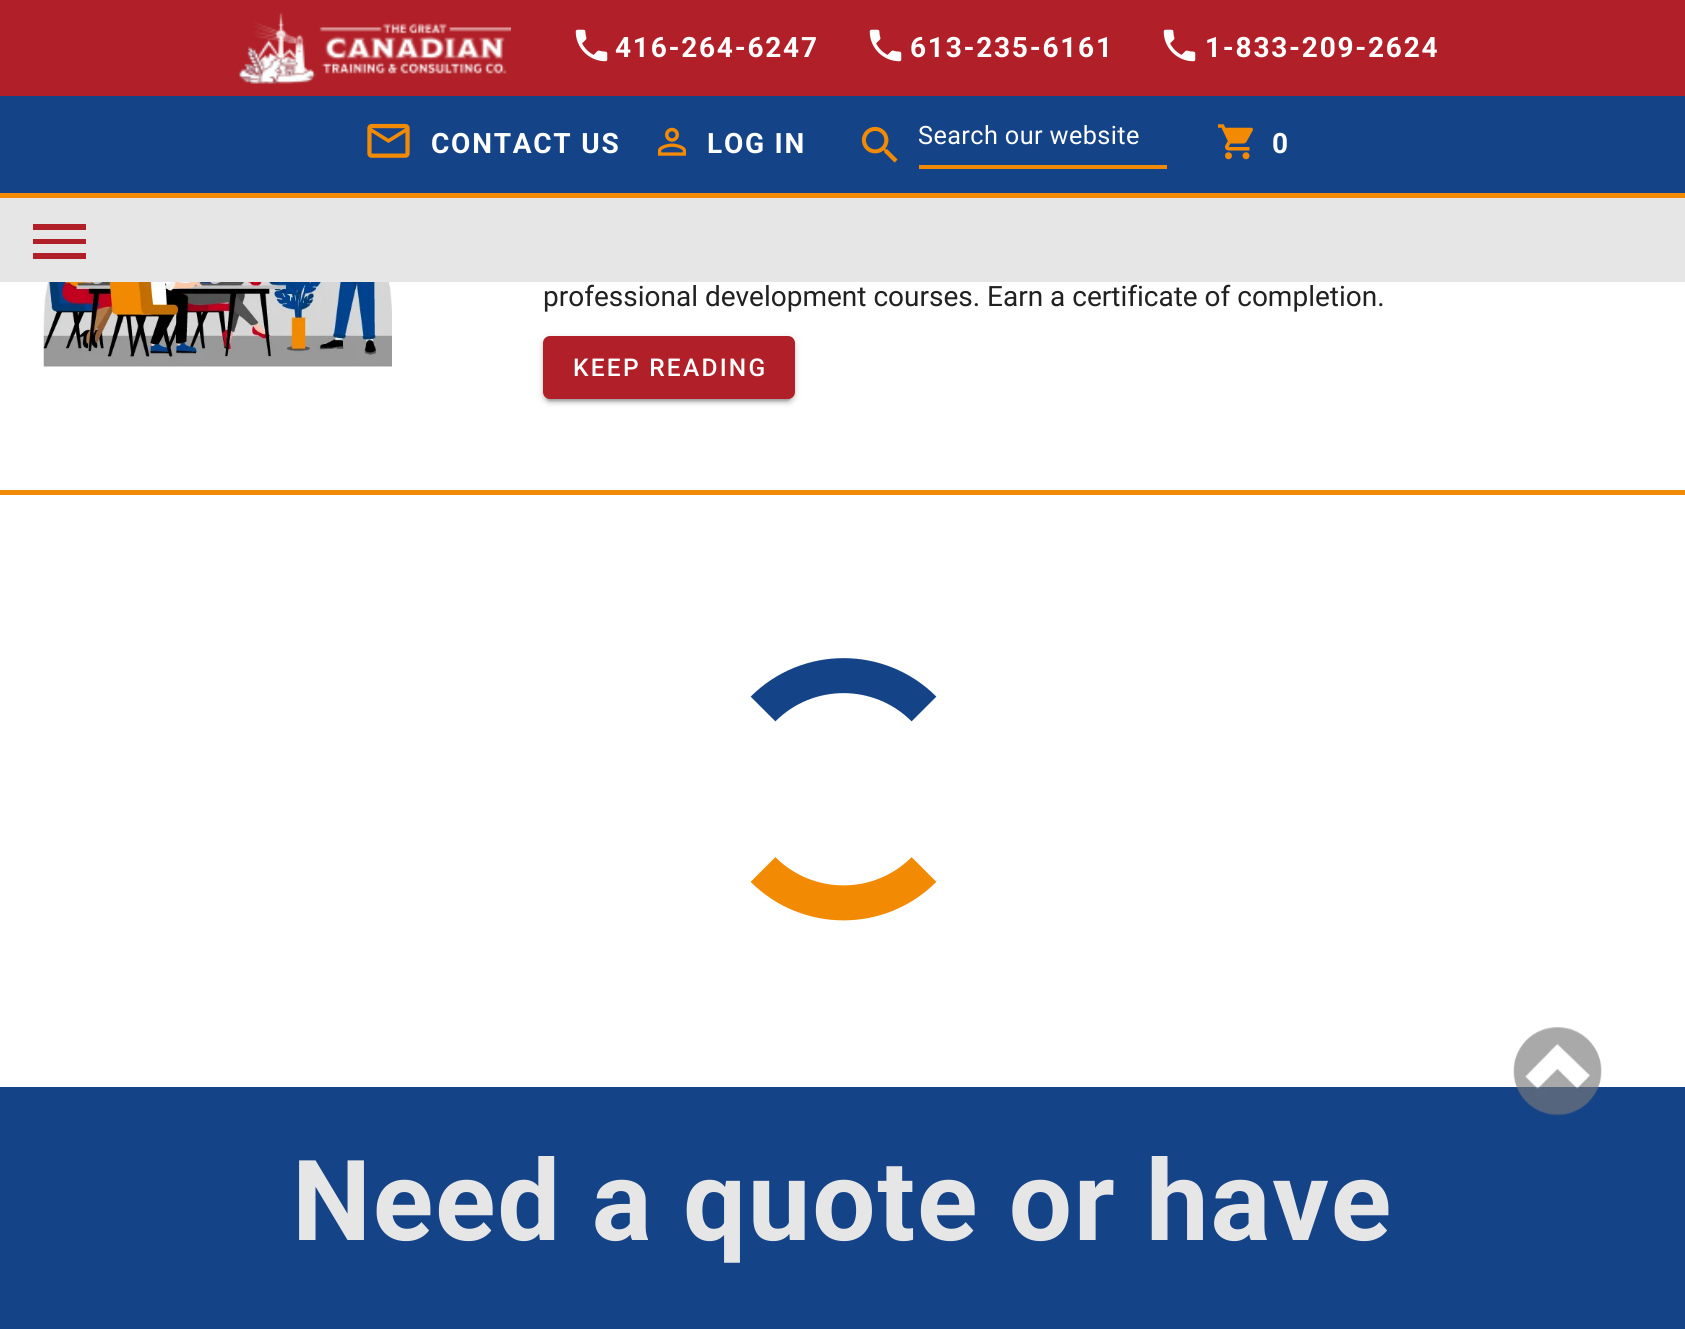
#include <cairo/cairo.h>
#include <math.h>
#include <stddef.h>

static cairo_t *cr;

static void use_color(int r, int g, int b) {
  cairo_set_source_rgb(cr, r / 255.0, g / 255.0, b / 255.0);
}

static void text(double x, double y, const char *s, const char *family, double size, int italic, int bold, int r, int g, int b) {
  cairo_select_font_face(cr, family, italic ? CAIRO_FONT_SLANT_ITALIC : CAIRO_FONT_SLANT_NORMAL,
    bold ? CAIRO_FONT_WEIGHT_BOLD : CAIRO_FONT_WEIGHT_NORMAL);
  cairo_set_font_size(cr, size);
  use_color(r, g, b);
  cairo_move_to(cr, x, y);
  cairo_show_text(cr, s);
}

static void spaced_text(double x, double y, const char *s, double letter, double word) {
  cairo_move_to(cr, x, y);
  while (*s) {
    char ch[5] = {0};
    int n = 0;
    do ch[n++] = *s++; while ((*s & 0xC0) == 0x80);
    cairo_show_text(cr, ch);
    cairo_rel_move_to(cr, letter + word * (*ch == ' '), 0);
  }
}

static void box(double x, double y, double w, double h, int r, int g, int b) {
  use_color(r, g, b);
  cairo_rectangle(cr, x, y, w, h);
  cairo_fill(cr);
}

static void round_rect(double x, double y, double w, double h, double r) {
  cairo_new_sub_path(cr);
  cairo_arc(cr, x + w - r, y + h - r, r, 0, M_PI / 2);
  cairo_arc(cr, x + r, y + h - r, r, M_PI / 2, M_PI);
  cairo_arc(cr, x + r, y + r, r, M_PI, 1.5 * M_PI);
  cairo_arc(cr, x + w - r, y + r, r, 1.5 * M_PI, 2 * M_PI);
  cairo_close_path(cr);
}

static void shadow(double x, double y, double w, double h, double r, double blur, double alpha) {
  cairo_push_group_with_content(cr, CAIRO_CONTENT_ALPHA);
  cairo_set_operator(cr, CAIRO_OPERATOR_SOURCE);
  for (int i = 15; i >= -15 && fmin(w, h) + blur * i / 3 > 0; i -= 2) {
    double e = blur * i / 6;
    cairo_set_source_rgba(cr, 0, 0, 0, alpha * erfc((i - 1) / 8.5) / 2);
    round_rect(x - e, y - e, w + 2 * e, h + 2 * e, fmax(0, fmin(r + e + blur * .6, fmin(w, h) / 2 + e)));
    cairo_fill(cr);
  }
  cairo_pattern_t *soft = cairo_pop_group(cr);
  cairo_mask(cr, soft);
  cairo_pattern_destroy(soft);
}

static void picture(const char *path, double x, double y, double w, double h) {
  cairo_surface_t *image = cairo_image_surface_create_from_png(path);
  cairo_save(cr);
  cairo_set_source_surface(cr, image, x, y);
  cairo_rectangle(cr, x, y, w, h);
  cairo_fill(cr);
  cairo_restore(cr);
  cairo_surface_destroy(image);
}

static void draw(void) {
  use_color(255, 255, 255);
  cairo_paint(cr);
  box(0, 96, 1685, 97, 21, 67, 136);
  box(0, 193, 1685, 5, 242, 138, 4);
  box(0, 0, 1685, 96, 177, 32, 40);
  picture("img_01.png", 239, 13, 272, 71);
  picture("img_02.png", 575, 29, 33, 33);
  picture("img_02.png", 869, 29, 33, 33);
  picture("img_02.png", 1163, 29, 33, 33);
  picture("img_03.png", 367, 123, 43, 35);
  picture("img_04.png", 658, 127, 28, 29);
  picture("img_05.png", 861, 126, 37, 37);
  box(919, 165, 248, 4, 242, 138, 4);
  picture("img_06.png", 1218, 124, 35, 36);
  box(0, 198, 1685, 84, 230, 230, 230);
  use_color(177, 32, 40);
  cairo_new_path(cr);
  cairo_move_to(cr, 33, 224);
  cairo_line_to(cr, 86, 224);
  cairo_line_to(cr, 86, 230);
  cairo_line_to(cr, 33, 230);
  cairo_line_to(cr, 33, 224);
  cairo_move_to(cr, 33, 239);
  cairo_line_to(cr, 86, 239);
  cairo_line_to(cr, 86, 244);
  cairo_line_to(cr, 33, 244);
  cairo_line_to(cr, 33, 239);
  cairo_move_to(cr, 33, 253);
  cairo_line_to(cr, 86, 253);
  cairo_line_to(cr, 86, 259);
  cairo_line_to(cr, 33, 259);
  cairo_close_path(cr);
  cairo_fill(cr);
  box(0, 490, 1685, 5, 242, 138, 4);
  picture("img_07.png", 43, 282, 349, 85);
  use_color(0, 0, 0);
  shadow(543, 338, 252, 63, 7, 4.5, 0.12);
  shadow(543, 340, 252, 63, 7, 2, 0.14);
  shadow(546, 345, 245, 56, 4, 1, 0.2);
  use_color(177, 32, 40);
  round_rect(543, 336, 252, 63, 7);
  cairo_fill(cr);
  cairo_new_path(cr);
  cairo_move_to(cr, 763, 709);
  cairo_curve_to(cr, 807.5, 664.5, 879.5, 664.5, 924, 709);
  use_color(21, 67, 136);
  cairo_set_line_width(cr, 35);
  cairo_stroke(cr);
  cairo_new_path(cr);
  cairo_move_to(cr, 924, 869.5);
  cairo_curve_to(cr, 879.5, 914, 807.5, 914, 763, 869.5);
  use_color(242, 138, 4);
  cairo_stroke(cr);
  box(0, 1087, 1685, 242, 21, 67, 136);
  picture("img_08.png", 1513, 1027, 89, 89);
  cairo_select_font_face(cr, "Roboto", CAIRO_FONT_SLANT_NORMAL, CAIRO_FONT_WEIGHT_BOLD);
  cairo_set_font_size(cr, 28);
  use_color(255, 255, 255);
  spaced_text(615, 57, "416-264-6247", 1.75, 0);
  spaced_text(910, 57, "613-235-6161", 1.75, 0);
  spaced_text(1205, 57, "1-833-209-2624", 1.75, 0);
  spaced_text(431, 153, "CONTACT US", 1.75, 0);
  spaced_text(707, 153, "LOG IN", 1.75, 0);
  cairo_select_font_face(cr, "Roboto", CAIRO_FONT_SLANT_NORMAL, CAIRO_FONT_WEIGHT_NORMAL);
  cairo_set_font_size(cr, 25.25);
  spaced_text(918, 144, "Search our website", 0.4, 0);
  cairo_select_font_face(cr, "Roboto", CAIRO_FONT_SLANT_NORMAL, CAIRO_FONT_WEIGHT_BOLD);
  cairo_set_font_size(cr, 28);
  spaced_text(1272, 153, "0", 1.75, 0);
  text(543, 306, "professional development courses. Earn a certificate of completion.", "Roboto", 28, 0, 0, 33, 33, 33);
  cairo_select_font_face(cr, "Roboto Medium", CAIRO_FONT_SLANT_NORMAL, CAIRO_FONT_WEIGHT_NORMAL);
  cairo_set_font_size(cr, 24.5);
  use_color(255, 255, 255);
  spaced_text(573, 376, "KEEP READING", 2.25, 0);
  cairo_select_font_face(cr, "Roboto", CAIRO_FONT_SLANT_NORMAL, CAIRO_FONT_WEIGHT_BOLD);
  cairo_set_font_size(cr, 112);
  use_color(230, 230, 230);
  spaced_text(292, 1240, "Need a quote or have", 1.75, 0);
}

int main(void) {
  cairo_surface_t *surface = cairo_image_surface_create(CAIRO_FORMAT_RGB24, 1685, 1329);
  cr = cairo_create(surface);
  cairo_font_options_t *options = cairo_font_options_create();
  cairo_font_options_set_hint_metrics(options, CAIRO_HINT_METRICS_OFF);
  cairo_font_options_set_hint_style(options, CAIRO_HINT_STYLE_NONE);
  cairo_set_font_options(cr, options);
  cairo_set_miter_limit(cr, 4);
  draw();
  cairo_surface_write_to_png(surface, "out.png");
  cairo_font_options_destroy(options);
  cairo_destroy(cr);
  cairo_surface_destroy(surface);
  return 0;
}
